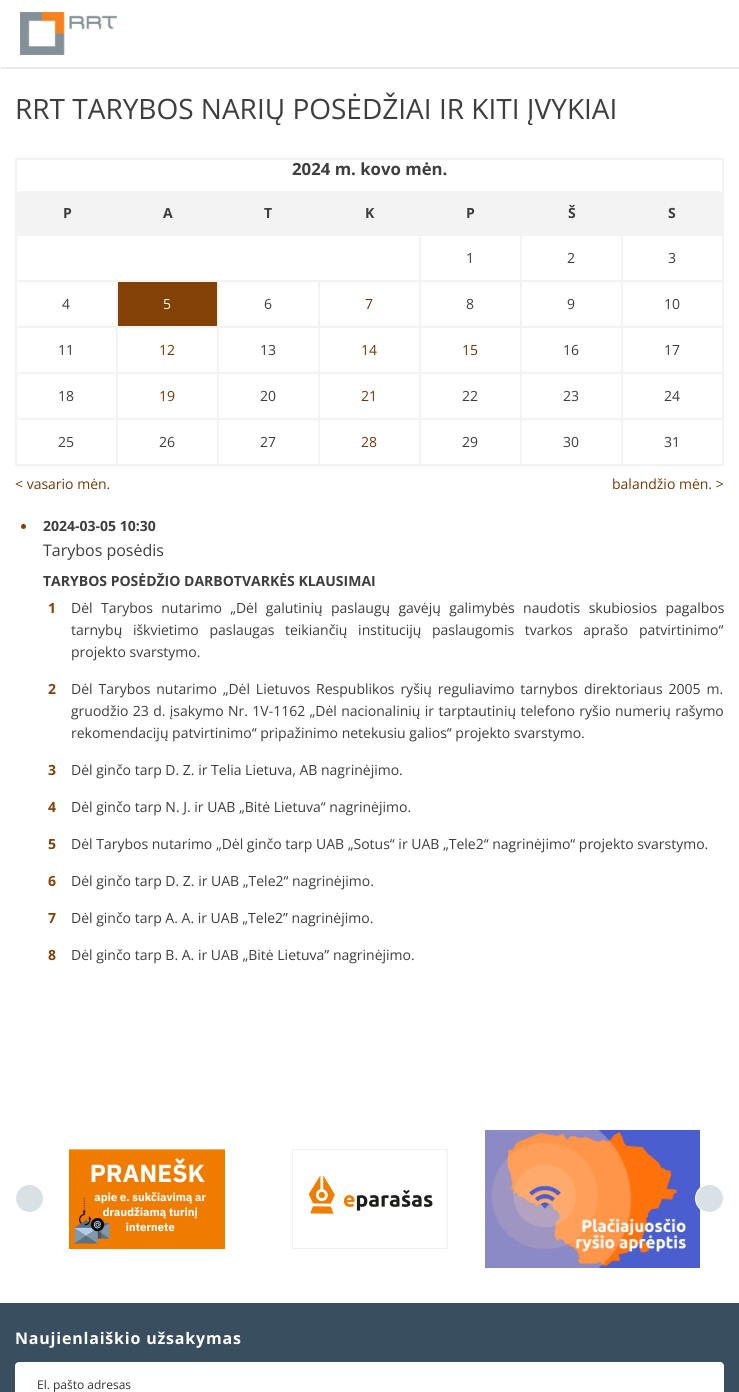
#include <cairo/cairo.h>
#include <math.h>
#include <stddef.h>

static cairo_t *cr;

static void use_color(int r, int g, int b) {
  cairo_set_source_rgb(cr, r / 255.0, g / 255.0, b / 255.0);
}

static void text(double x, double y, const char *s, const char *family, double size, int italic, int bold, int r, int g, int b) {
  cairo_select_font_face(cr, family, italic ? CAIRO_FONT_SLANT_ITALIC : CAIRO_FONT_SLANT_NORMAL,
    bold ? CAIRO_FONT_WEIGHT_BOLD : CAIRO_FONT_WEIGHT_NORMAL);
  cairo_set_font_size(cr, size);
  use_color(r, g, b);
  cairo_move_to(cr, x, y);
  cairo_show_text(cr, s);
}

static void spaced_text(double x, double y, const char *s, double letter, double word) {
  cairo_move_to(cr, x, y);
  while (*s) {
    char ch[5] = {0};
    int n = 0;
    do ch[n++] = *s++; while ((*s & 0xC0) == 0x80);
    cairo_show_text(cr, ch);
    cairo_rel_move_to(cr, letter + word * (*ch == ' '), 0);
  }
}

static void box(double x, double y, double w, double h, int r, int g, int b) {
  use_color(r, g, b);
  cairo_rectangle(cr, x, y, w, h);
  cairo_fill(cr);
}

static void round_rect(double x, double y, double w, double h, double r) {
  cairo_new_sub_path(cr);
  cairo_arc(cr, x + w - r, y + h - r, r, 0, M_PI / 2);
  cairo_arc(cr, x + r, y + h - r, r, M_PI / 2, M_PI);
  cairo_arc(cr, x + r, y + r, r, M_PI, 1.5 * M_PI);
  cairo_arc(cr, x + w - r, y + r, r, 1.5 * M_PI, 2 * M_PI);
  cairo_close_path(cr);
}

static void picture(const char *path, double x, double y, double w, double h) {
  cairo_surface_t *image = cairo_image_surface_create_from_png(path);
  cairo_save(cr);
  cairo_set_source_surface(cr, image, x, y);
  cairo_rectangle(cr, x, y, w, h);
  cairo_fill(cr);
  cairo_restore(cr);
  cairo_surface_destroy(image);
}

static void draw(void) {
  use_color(57, 78, 95);
  cairo_paint(cr);
  box(0, 0, 739, 1303, 255, 255, 255);
  cairo_set_source_rgba(cr, 0.831, 0.831, 0.831, 0.49);
  cairo_new_path(cr);
  cairo_move_to(cr, 1, 67);
  cairo_line_to(cr, 1, 69);
  cairo_line_to(cr, 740, 69);
  cairo_line_to(cr, 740, 2);
  cairo_line_to(cr, 739, 2);
  cairo_line_to(cr, 739, 67);
  cairo_close_path(cr);
  cairo_fill(cr);
  picture("img_01.png", 20, 12, 97, 43);
  box(15, 158, 709, 2, 243, 243, 243);
  cairo_new_path(cr);
  cairo_move_to(cr, 622, 191);
  cairo_line_to(cr, 719, 191);
  cairo_curve_to(cr, 721, 191, 723, 193, 723, 195);
  cairo_line_to(cr, 723, 231);
  cairo_curve_to(cr, 723, 233, 721, 235, 719, 235);
  cairo_line_to(cr, 622, 235);
  cairo_close_path(cr);
  cairo_fill(cr);
  box(722, 158, 2, 308, 243, 243, 243);
  box(15, 464, 709, 2, 243, 243, 243);
  cairo_new_path(cr);
  cairo_move_to(cr, 20, 191);
  cairo_line_to(cr, 117, 191);
  cairo_line_to(cr, 117, 235);
  cairo_line_to(cr, 20, 235);
  cairo_curve_to(cr, 18, 235, 16, 233, 16, 231);
  cairo_line_to(cr, 16, 195);
  cairo_curve_to(cr, 16, 193, 18, 191, 20, 191);
  cairo_close_path(cr);
  cairo_fill(cr);
  box(15, 158, 2, 308, 243, 243, 243);
  box(117, 191, 505, 43, 243, 243, 243);
  box(621, 234, 103, 2, 243, 243, 243);
  box(621, 280, 103, 2, 243, 243, 243);
  box(621, 326, 103, 2, 243, 243, 243);
  box(621, 372, 103, 2, 243, 243, 243);
  box(621, 418, 103, 2, 243, 243, 243);
  box(621, 418, 2, 48, 243, 243, 243);
  box(520, 418, 103, 2, 243, 243, 243);
  box(621, 372, 2, 48, 243, 243, 243);
  box(520, 372, 103, 2, 243, 243, 243);
  box(621, 326, 2, 48, 243, 243, 243);
  box(520, 326, 103, 2, 243, 243, 243);
  box(621, 280, 2, 48, 243, 243, 243);
  box(520, 280, 103, 2, 243, 243, 243);
  box(621, 234, 2, 48, 243, 243, 243);
  box(520, 234, 103, 2, 243, 243, 243);
  box(520, 418, 2, 48, 243, 243, 243);
  box(419, 418, 103, 2, 243, 243, 243);
  box(520, 372, 2, 48, 243, 243, 243);
  box(419, 372, 103, 2, 243, 243, 243);
  box(520, 326, 2, 48, 243, 243, 243);
  box(419, 326, 103, 2, 243, 243, 243);
  box(520, 280, 2, 48, 243, 243, 243);
  box(419, 280, 103, 2, 243, 243, 243);
  box(520, 234, 2, 48, 243, 243, 243);
  box(419, 234, 103, 2, 243, 243, 243);
  box(419, 418, 2, 48, 243, 243, 243);
  box(318, 418, 103, 2, 243, 243, 243);
  box(419, 372, 2, 48, 243, 243, 243);
  box(318, 372, 103, 2, 243, 243, 243);
  box(419, 326, 2, 48, 243, 243, 243);
  box(318, 326, 103, 2, 243, 243, 243);
  box(419, 280, 2, 48, 243, 243, 243);
  box(318, 280, 103, 2, 243, 243, 243);
  box(419, 234, 2, 48, 243, 243, 243);
  box(15, 234, 406, 2, 243, 243, 243);
  box(318, 418, 2, 48, 243, 243, 243);
  box(217, 418, 103, 2, 243, 243, 243);
  box(318, 372, 2, 48, 243, 243, 243);
  box(217, 372, 103, 2, 243, 243, 243);
  box(318, 326, 2, 48, 243, 243, 243);
  box(217, 326, 103, 2, 243, 243, 243);
  box(318, 280, 2, 48, 243, 243, 243);
  box(217, 280, 103, 2, 243, 243, 243);
  box(217, 418, 2, 48, 243, 243, 243);
  box(116, 418, 103, 2, 243, 243, 243);
  box(217, 372, 2, 48, 243, 243, 243);
  box(116, 372, 103, 2, 243, 243, 243);
  box(217, 326, 2, 48, 243, 243, 243);
  box(116, 326, 103, 2, 243, 243, 243);
  box(217, 280, 2, 48, 243, 243, 243);
  box(116, 280, 103, 2, 243, 243, 243);
  box(116, 418, 2, 48, 243, 243, 243);
  box(15, 418, 103, 2, 243, 243, 243);
  box(116, 372, 2, 48, 243, 243, 243);
  box(15, 372, 103, 2, 243, 243, 243);
  box(116, 326, 2, 48, 243, 243, 243);
  box(15, 326, 103, 2, 243, 243, 243);
  box(116, 280, 2, 48, 243, 243, 243);
  box(15, 280, 103, 2, 243, 243, 243);
  box(118, 282, 99, 44, 132, 65, 6);
  cairo_arc(cr, 23.5, 526.5, 2.5, 0, 2 * M_PI);
  cairo_fill(cr);
  use_color(216, 225, 230);
  cairo_arc(cr, 29.5, 1198.5, 14, 0, 2 * M_PI);
  cairo_fill_preserve(cr);
  use_color(255, 255, 255);
  cairo_set_line_width(cr, 1);
  cairo_stroke(cr);
  picture("img_02.png", 69, 1149, 156, 100);
  picture("img_03.png", 292, 1149, 156, 100);
  picture("img_04.png", 485, 1130, 215, 138);
  use_color(216, 225, 230);
  cairo_arc(cr, 709.5, 1198.5, 14, 0, 2 * M_PI);
  cairo_fill_preserve(cr);
  use_color(255, 255, 255);
  cairo_stroke(cr);
  round_rect(15, 1362, 709, 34, 4);
  cairo_fill(cr);
  text(15, 119, "RRT TARYBOS NARIŲ POSĖDŽIAI IR KITI ĮVYKIAI", "Open Sans", 28, 0, 0, 62, 62, 62);
  text(292, 175, "2024 m. kovo mėn.", "Open Sans", 16.75, 0, 1, 62, 62, 62);
  text(63, 218, "P", "Open Sans", 14, 0, 1, 62, 62, 62);
  text(163, 218, "A", "Open Sans", 14, 0, 1, 62, 62, 62);
  text(264, 218, "T", "Open Sans", 14, 0, 1, 62, 62, 62);
  text(365, 218, "K", "Open Sans", 14, 0, 1, 62, 62, 62);
  text(466, 218, "P", "Open Sans", 14, 0, 1, 62, 62, 62);
  text(568, 218, "Š", "Open Sans", 14, 0, 1, 62, 62, 62);
  text(668, 218, "S", "Open Sans", 14, 0, 1, 62, 62, 62);
  text(466, 263, "1", "Open Sans", 14, 0, 0, 62, 62, 62);
  text(567, 263, "2", "Open Sans", 14, 0, 0, 62, 62, 62);
  text(668, 263, "3", "Open Sans", 14, 0, 0, 62, 62, 62);
  text(62, 309, "4", "Open Sans", 14, 0, 0, 62, 62, 62);
  text(163, 309, "5", "Open Sans", 14, 0, 0, 255, 255, 255);
  text(264, 309, "6", "Open Sans", 14, 0, 0, 62, 62, 62);
  text(365, 309, "7", "Open Sans", 14, 0, 0, 114, 57, 7);
  text(466, 309, "8", "Open Sans", 14, 0, 0, 62, 62, 62);
  text(567, 309, "9", "Open Sans", 14, 0, 0, 62, 62, 62);
  text(664, 309, "10", "Open Sans", 14, 0, 0, 62, 62, 62);
  text(58, 355, "11", "Open Sans", 14, 0, 0, 62, 62, 62);
  text(159, 355, "12", "Open Sans", 14, 0, 0, 114, 57, 7);
  text(260, 355, "13", "Open Sans", 14, 0, 0, 62, 62, 62);
  text(361, 355, "14", "Open Sans", 14, 0, 0, 114, 57, 7);
  text(462, 355, "15", "Open Sans", 14, 0, 0, 114, 57, 7);
  text(563, 355, "16", "Open Sans", 14, 0, 0, 62, 62, 62);
  text(664, 355, "17", "Open Sans", 14, 0, 0, 62, 62, 62);
  text(58, 401, "18", "Open Sans", 14, 0, 0, 62, 62, 62);
  text(159, 401, "19", "Open Sans", 14, 0, 0, 114, 57, 7);
  text(260, 401, "20", "Open Sans", 14, 0, 0, 62, 62, 62);
  text(361, 401, "21", "Open Sans", 14, 0, 0, 114, 57, 7);
  text(462, 401, "22", "Open Sans", 14, 0, 0, 62, 62, 62);
  text(563, 401, "23", "Open Sans", 14, 0, 0, 62, 62, 62);
  text(664, 401, "24", "Open Sans", 14, 0, 0, 62, 62, 62);
  text(58, 447, "25", "Open Sans", 14, 0, 0, 62, 62, 62);
  text(159, 447, "26", "Open Sans", 14, 0, 0, 62, 62, 62);
  text(260, 447, "27", "Open Sans", 14, 0, 0, 62, 62, 62);
  text(361, 447, "28", "Open Sans", 14, 0, 0, 114, 57, 7);
  text(462, 447, "29", "Open Sans", 14, 0, 0, 62, 62, 62);
  text(563, 447, "30", "Open Sans", 14, 0, 0, 62, 62, 62);
  text(664, 447, "31", "Open Sans", 14, 0, 0, 62, 62, 62);
  text(15, 489, "< vasario mėn.", "Open Sans", 14, 0, 0, 114, 57, 7);
  text(612, 489, "balandžio mėn. >", "Open Sans", 14, 0, 0, 114, 57, 7);
  text(43, 531, "2024-03-05 10:30", "Open Sans", 14, 0, 1, 62, 62, 62);
  text(43, 556, "Tarybos posėdis", "Open Sans", 16, 0, 0, 62, 62, 62);
  text(43, 586, "TARYBOS POSĖDŽIO DARBOTVARKĖS KLAUSIMAI", "Open Sans", 14, 0, 1, 62, 62, 62);
  text(48, 613, "1", "Open Sans", 14, 0, 1, 132, 65, 6);
  cairo_select_font_face(cr, "Open Sans", CAIRO_FONT_SLANT_NORMAL, CAIRO_FONT_WEIGHT_NORMAL);
  use_color(62, 62, 62);
  spaced_text(71, 613, "Dėl Tarybos nutarimo „Dėl galutinių paslaugų gavėjų galimybės naudotis skubiosios pagalbos", 0, 4.75);
  spaced_text(71, 635, "tarnybų iškvietimo paslaugas teikiančių institucijų paslaugomis tvarkos aprašo patvirtinimo“", 0, 7);
  text(71, 657, "projekto svarstymo.", "Open Sans", 14, 0, 0, 62, 62, 62);
  text(48, 694, "2", "Open Sans", 14, 0, 1, 132, 65, 6);
  cairo_select_font_face(cr, "Open Sans", CAIRO_FONT_SLANT_NORMAL, CAIRO_FONT_WEIGHT_NORMAL);
  use_color(62, 62, 62);
  spaced_text(71, 694, "Dėl Tarybos nutarimo „Dėl Lietuvos Respublikos ryšių reguliavimo tarnybos direktoriaus 2005 m.", 0, 2.25);
  spaced_text(71, 716, "gruodžio 23 d. įsakymo Nr. 1V-1162 „Dėl nacionalinių ir tarptautinių telefono ryšio numerių rašymo", 0, 0.75);
  text(71, 738, "rekomendacijų patvirtinimo“ pripažinimo netekusiu galios“ projekto svarstymo.", "Open Sans", 14, 0, 0, 62, 62, 62);
  text(48, 775, "3", "Open Sans", 14, 0, 1, 132, 65, 6);
  text(71, 775, "Dėl ginčo tarp D. Z. ir Telia Lietuva, AB nagrinėjimo.", "Open Sans", 14, 0, 0, 62, 62, 62);
  text(48, 812, "4", "Open Sans", 14, 0, 1, 132, 65, 6);
  text(71, 812, "Dėl ginčo tarp N. J. ir UAB „Bitė Lietuva“ nagrinėjimo.", "Open Sans", 14, 0, 0, 62, 62, 62);
  text(48, 849, "5", "Open Sans", 14, 0, 1, 132, 65, 6);
  text(71, 849, "Dėl Tarybos nutarimo „Dėl ginčo tarp UAB „Sotus“ ir UAB „Tele2“ nagrinėjimo“ projekto svarstymo.", "Open Sans", 14, 0, 0, 62, 62, 62);
  text(48, 886, "6", "Open Sans", 14, 0, 1, 132, 65, 6);
  text(71, 886, "Dėl ginčo tarp D. Z. ir UAB „Tele2“ nagrinėjimo.", "Open Sans", 14, 0, 0, 62, 62, 62);
  text(48, 923, "7", "Open Sans", 14, 0, 1, 132, 65, 6);
  text(71, 923, "Dėl ginčo tarp A. A. ir UAB „Tele2” nagrinėjimo.", "Open Sans", 14, 0, 0, 62, 62, 62);
  text(48, 960, "8", "Open Sans", 14, 0, 1, 132, 65, 6);
  text(71, 960, "Dėl ginčo tarp B. A. ir UAB „Bitė Lietuva” nagrinėjimo.", "Open Sans", 14, 0, 0, 62, 62, 62);
  cairo_select_font_face(cr, "Open Sans", CAIRO_FONT_SLANT_NORMAL, CAIRO_FONT_WEIGHT_BOLD);
  cairo_set_font_size(cr, 16);
  use_color(255, 255, 255);
  spaced_text(15, 1344, "Naujienlaiškio užsakymas", 0.8, 0);
  text(37, 1389, "El. pašto adresas", "Open Sans", 12, 0, 0, 51, 51, 51);
}

int main(void) {
  cairo_surface_t *surface = cairo_image_surface_create(CAIRO_FORMAT_RGB24, 739, 1392);
  cr = cairo_create(surface);
  cairo_font_options_t *options = cairo_font_options_create();
  cairo_font_options_set_hint_metrics(options, CAIRO_HINT_METRICS_OFF);
  cairo_font_options_set_hint_style(options, CAIRO_HINT_STYLE_NONE);
  cairo_set_font_options(cr, options);
  cairo_set_miter_limit(cr, 4);
  draw();
  cairo_surface_write_to_png(surface, "out.png");
  cairo_font_options_destroy(options);
  cairo_destroy(cr);
  cairo_surface_destroy(surface);
  return 0;
}
